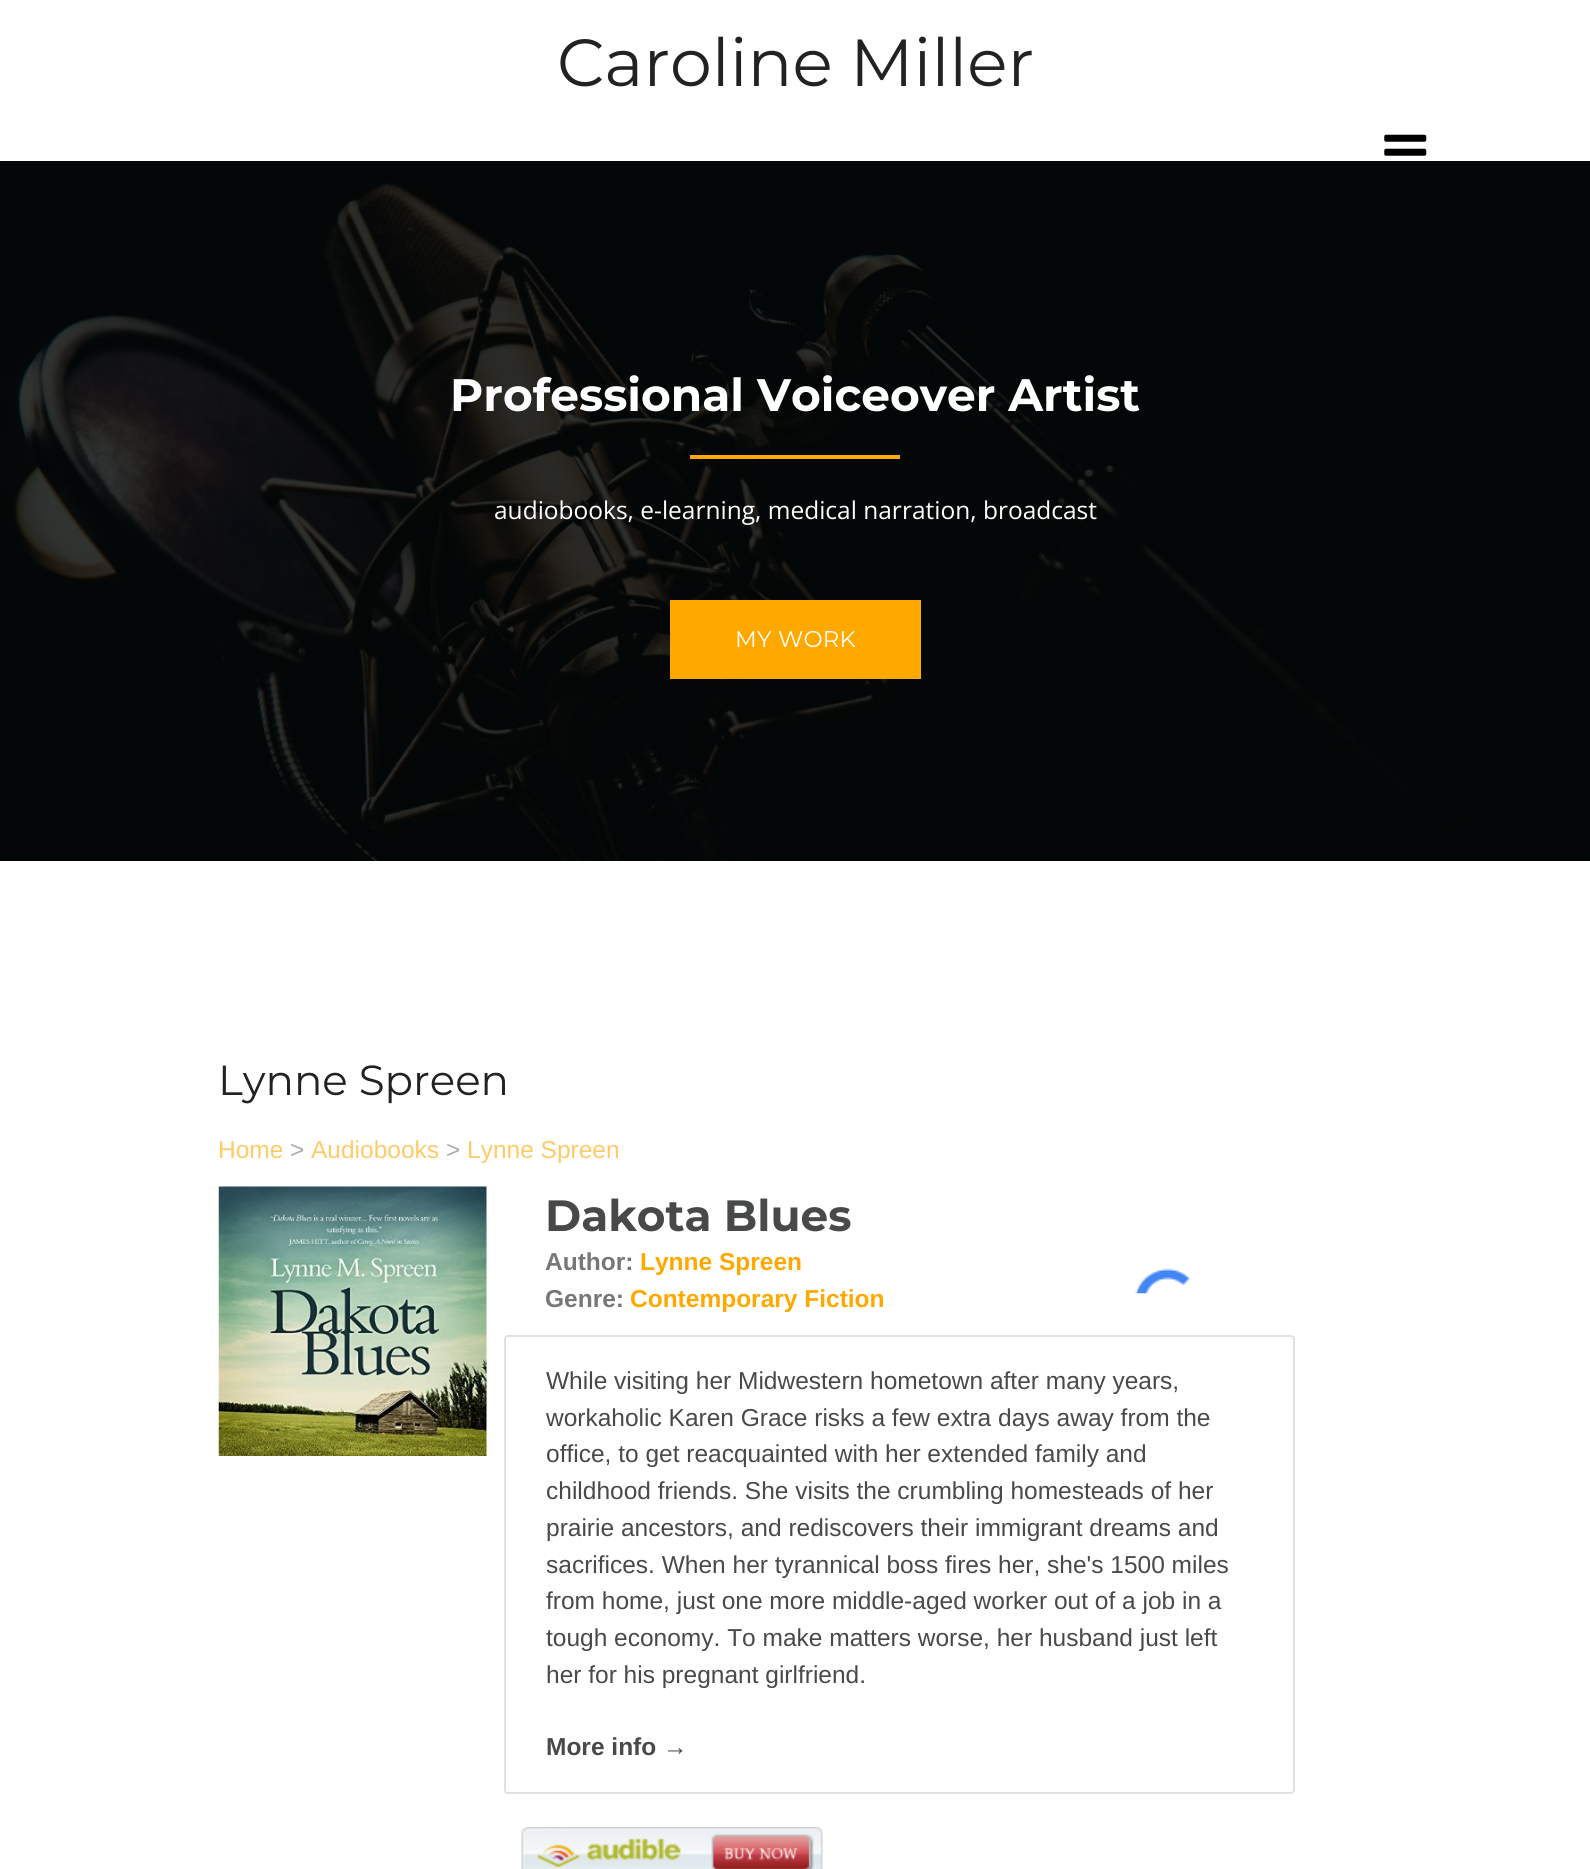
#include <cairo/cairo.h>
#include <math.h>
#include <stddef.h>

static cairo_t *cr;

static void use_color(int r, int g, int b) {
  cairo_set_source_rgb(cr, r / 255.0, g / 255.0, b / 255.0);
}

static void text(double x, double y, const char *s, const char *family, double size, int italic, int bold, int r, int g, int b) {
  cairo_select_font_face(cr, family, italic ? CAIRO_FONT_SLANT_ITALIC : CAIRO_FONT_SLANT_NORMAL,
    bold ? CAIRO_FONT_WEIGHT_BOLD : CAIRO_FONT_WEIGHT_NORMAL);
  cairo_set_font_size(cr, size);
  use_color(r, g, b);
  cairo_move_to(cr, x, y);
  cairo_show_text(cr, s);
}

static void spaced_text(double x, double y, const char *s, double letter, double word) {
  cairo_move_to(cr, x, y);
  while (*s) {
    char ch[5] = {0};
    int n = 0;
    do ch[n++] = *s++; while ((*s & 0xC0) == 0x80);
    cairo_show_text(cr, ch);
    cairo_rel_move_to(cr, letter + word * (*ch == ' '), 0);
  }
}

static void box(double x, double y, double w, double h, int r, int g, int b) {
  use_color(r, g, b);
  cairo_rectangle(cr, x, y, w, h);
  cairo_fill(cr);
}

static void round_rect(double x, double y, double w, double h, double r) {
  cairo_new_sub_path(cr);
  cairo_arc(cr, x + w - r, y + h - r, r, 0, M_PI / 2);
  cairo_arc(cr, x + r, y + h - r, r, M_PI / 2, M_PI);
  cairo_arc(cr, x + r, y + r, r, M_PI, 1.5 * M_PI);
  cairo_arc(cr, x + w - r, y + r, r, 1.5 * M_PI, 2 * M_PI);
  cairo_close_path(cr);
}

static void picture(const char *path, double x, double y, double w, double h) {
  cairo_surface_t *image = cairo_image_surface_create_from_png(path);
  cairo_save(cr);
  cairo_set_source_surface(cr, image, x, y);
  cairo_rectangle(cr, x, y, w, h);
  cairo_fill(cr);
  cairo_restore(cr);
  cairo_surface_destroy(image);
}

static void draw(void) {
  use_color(255, 255, 255);
  cairo_paint(cr);
  picture("img_01.png", 1384, 134, 43, 22);
  picture("img_02.png", 0, 161, 1590, 700);
  box(690, 455, 210, 4, 255, 168, 0);
  box(670, 600, 251, 79, 255, 168, 0);
  picture("img_03.png", 218, 1186, 269, 270);
  picture("img_04.png", 1135, 1268, 56, 26);
  round_rect(505, 1336, 789, 457, 3);
  use_color(224, 226, 226);
  cairo_stroke(cr);
  picture("img_05.png", 521, 1827, 302, 42);
  text(557, 86, "Caroline Miller", "Montserrat", 66.5, 0, 0, 34, 34, 34);
  text(450, 411, "Professional Voiceover Artist", "Montserrat", 45.5, 0, 1, 255, 255, 255);
  text(494, 519, "audiobooks, e-learning, medical narration, broadcast", "Open Sans", 24.5, 0, 0, 255, 255, 255);
  cairo_select_font_face(cr, "Montserrat", CAIRO_FONT_SLANT_NORMAL, CAIRO_FONT_WEIGHT_NORMAL);
  cairo_set_font_size(cr, 22.75);
  spaced_text(735, 647, "MY WORK", 0.25, 0);
  text(218, 1095, "Lynne Spreen", "Montserrat", 42, 0, 0, 34, 34, 34);
  text(218, 1158, "Home", "Liberation Sans", 24.5, 0, 0, 255, 203, 102);
  text(290, 1158, ">", "Liberation Sans", 24.5, 0, 0, 173, 173, 173);
  text(311, 1158, "Audiobooks", "Liberation Sans", 24.5, 0, 0, 255, 203, 102);
  text(446, 1158, ">", "Liberation Sans", 24.5, 0, 0, 173, 173, 173);
  text(467, 1158, "Lynne Spreen", "Liberation Sans", 24.5, 0, 0, 255, 203, 102);
  text(545, 1231, "Dakota Blues", "Montserrat", 43.75, 0, 1, 72, 73, 73);
  text(545, 1270, "Author:", "Liberation Sans", 24.5, 0, 1, 119, 119, 119);
  text(640, 1270, "Lynne Spreen", "Liberation Sans", 24.5, 0, 1, 255, 168, 0);
  text(545, 1307, "Genre:", "Liberation Sans", 24.5, 0, 1, 119, 119, 119);
  text(630, 1307, "Contemporary Fiction", "Liberation Sans", 24.5, 0, 1, 255, 168, 0);
  text(546, 1389, "While visiting her Midwestern hometown after many years,", "Liberation Sans", 24.5, 0, 0, 72, 73, 73);
  text(546, 1426, "workaholic Karen Grace risks a few extra days away from the", "Liberation Sans", 24.5, 0, 0, 72, 73, 73);
  text(546, 1462, "office, to get reacquainted with her extended family and", "Liberation Sans", 24.5, 0, 0, 72, 73, 73);
  text(546, 1499, "childhood friends. She visits the crumbling homesteads of her", "Liberation Sans", 24.5, 0, 0, 72, 73, 73);
  text(546, 1536, "prairie ancestors, and rediscovers their immigrant dreams and", "Liberation Sans", 24.5, 0, 0, 72, 73, 73);
  text(546, 1573, "sacrifices. When her tyrannical boss fires her, she's 1500 miles", "Liberation Sans", 24.5, 0, 0, 72, 73, 73);
  text(546, 1609, "from home, just one more middle-aged worker out of a job in a", "Liberation Sans", 24.5, 0, 0, 72, 73, 73);
  text(546, 1646, "tough economy. To make matters worse, her husband just left", "Liberation Sans", 24.5, 0, 0, 72, 73, 73);
  text(546, 1683, "her for his pregnant girlfriend.", "Liberation Sans", 24.5, 0, 0, 72, 73, 73);
  text(546, 1755, "More info →", "Liberation Sans", 24.5, 0, 1, 72, 73, 73);
}

int main(void) {
  cairo_surface_t *surface = cairo_image_surface_create(CAIRO_FORMAT_RGB24, 1590, 1869);
  cr = cairo_create(surface);
  cairo_font_options_t *options = cairo_font_options_create();
  cairo_font_options_set_hint_metrics(options, CAIRO_HINT_METRICS_OFF);
  cairo_font_options_set_hint_style(options, CAIRO_HINT_STYLE_NONE);
  cairo_set_font_options(cr, options);
  cairo_set_miter_limit(cr, 4);
  draw();
  cairo_surface_write_to_png(surface, "out.png");
  cairo_font_options_destroy(options);
  cairo_destroy(cr);
  cairo_surface_destroy(surface);
  return 0;
}
